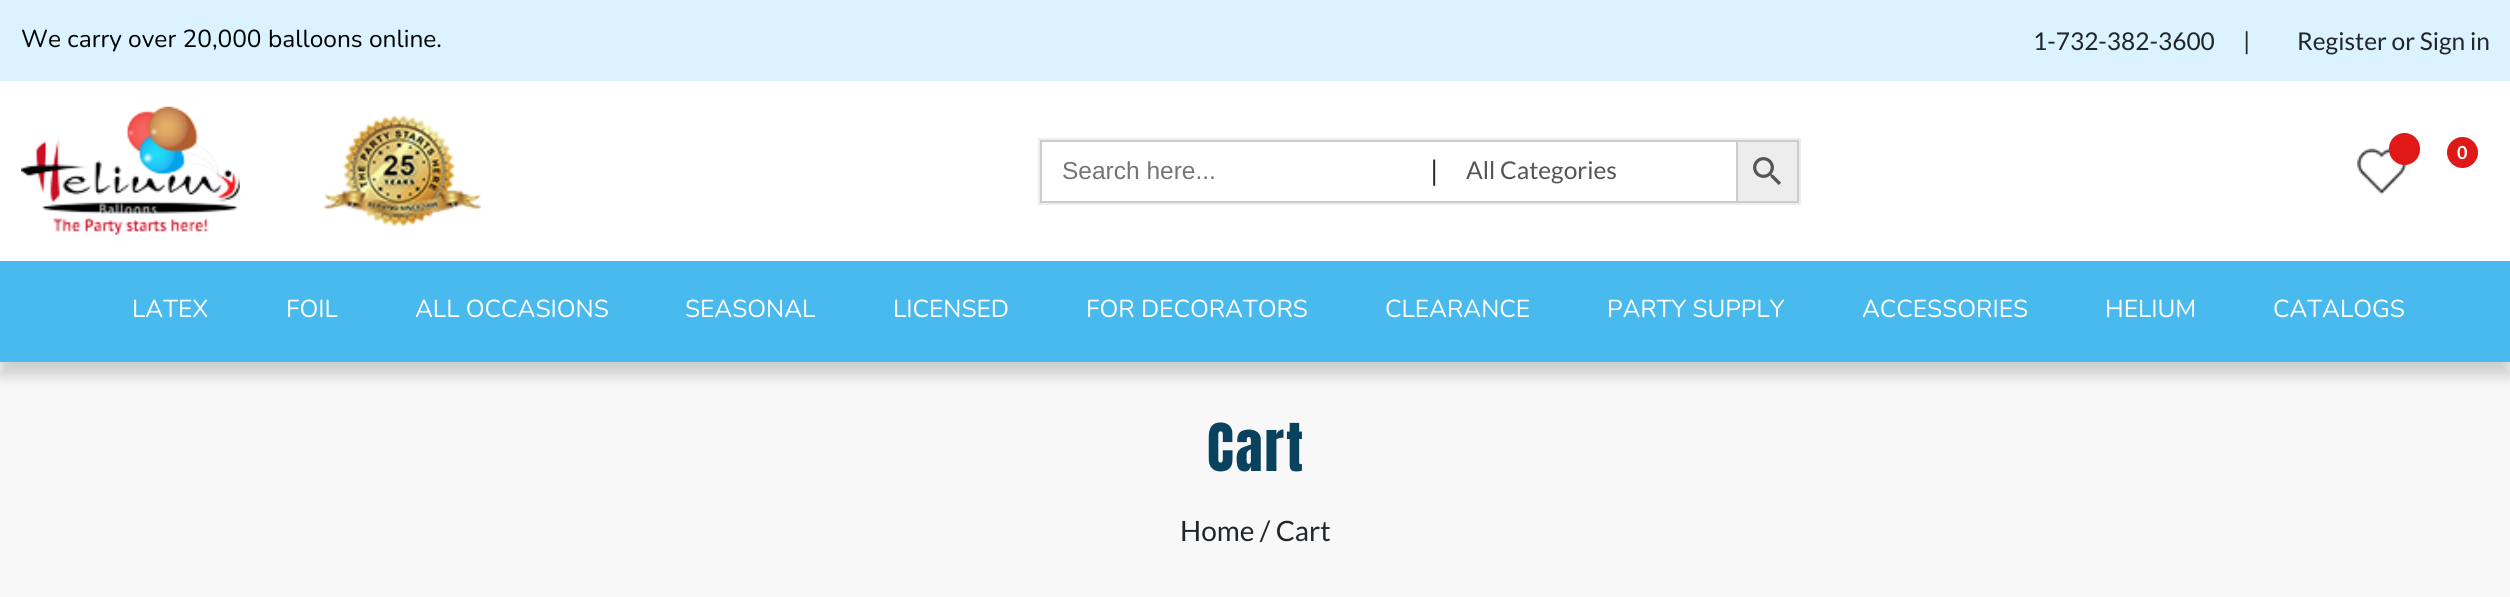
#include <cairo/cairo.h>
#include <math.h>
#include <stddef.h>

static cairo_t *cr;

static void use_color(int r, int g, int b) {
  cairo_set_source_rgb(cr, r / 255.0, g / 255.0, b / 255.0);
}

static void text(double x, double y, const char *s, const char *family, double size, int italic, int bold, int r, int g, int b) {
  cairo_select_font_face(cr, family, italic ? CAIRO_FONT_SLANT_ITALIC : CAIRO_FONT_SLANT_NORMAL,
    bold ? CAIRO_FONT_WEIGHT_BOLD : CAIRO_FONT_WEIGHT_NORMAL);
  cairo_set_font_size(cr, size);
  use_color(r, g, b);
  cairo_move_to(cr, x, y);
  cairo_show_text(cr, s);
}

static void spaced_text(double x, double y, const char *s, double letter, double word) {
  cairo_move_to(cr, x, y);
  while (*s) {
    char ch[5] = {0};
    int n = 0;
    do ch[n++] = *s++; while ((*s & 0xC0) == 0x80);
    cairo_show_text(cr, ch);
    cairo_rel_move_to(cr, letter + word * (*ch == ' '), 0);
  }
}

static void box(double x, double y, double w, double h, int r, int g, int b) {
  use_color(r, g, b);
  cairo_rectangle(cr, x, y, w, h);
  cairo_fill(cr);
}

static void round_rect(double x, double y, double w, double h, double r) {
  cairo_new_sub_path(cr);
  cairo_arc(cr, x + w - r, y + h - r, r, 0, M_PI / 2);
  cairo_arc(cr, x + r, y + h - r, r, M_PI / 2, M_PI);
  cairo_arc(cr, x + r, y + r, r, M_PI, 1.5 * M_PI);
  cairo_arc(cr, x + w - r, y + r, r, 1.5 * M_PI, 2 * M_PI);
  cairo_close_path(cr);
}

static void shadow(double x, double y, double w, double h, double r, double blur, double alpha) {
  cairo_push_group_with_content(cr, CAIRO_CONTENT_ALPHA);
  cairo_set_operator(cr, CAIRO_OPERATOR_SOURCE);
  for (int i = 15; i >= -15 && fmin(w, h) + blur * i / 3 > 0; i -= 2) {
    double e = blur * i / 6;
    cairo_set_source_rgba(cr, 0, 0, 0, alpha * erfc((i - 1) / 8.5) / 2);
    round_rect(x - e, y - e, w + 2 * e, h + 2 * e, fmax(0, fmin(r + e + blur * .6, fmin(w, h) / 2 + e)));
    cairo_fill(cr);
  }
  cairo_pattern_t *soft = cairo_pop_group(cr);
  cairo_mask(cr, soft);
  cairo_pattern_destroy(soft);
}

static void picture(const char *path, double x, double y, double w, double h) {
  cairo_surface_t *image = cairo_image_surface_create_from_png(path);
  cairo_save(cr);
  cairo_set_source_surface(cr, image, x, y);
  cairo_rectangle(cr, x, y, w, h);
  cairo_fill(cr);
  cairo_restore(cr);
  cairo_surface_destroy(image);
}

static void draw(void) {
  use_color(255, 255, 255);
  cairo_paint(cr);
  box(0, 0, 2510, 81, 218, 243, 255);
  picture("img_01.png", 21, 106, 219, 129);
  picture("img_02.png", 323, 115, 159, 111);
  picture("img_03.png", 2357, 148, 50, 47);
  use_color(225, 24, 24);
  round_rect(2389, 133, 31, 32, 15.5);
  cairo_fill(cr);
  cairo_arc(cr, 2462.5, 152.5, 15.5, 0, 2 * M_PI);
  cairo_fill(cr);
  cairo_rectangle(cr, 1039, 139, 761, 65);
  use_color(237, 237, 237);
  cairo_stroke(cr);
  box(1040, 140, 696, 2, 204, 204, 204);
  box(1040, 201, 696, 2, 204, 204, 204);
  box(1040, 140, 2, 63, 204, 204, 204);
  use_color(237, 237, 237);
  cairo_rectangle(cr, 1737, 141, 61, 61);
  cairo_fill_preserve(cr);
  use_color(204, 204, 204);
  cairo_stroke(cr);
  picture("img_04.png", 1753, 157, 28, 28);
  box(0, 362, 2510, 235, 248, 248, 248);
  use_color(0, 0, 0);
  shadow(0, 275, 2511, 101, 0, 7, 0.17);
  box(0, 261, 2510, 101, 73, 186, 238);
  text(21, 47, "We carry over 20,000 balloons online.", "Nunito", 24.5, 0, 0, 0, 0, 0);
  text(2033, 50, "1-732-382-3600", "Lato", 24.5, 0, 0, 33, 37, 41);
  text(2243, 50, "|", "Lato", 24.5, 0, 0, 33, 37, 41);
  text(2297, 50, "Register or Sign in", "Lato", 24.5, 0, 0, 33, 37, 41);
  text(2457, 159, "0", "Lato", 18, 0, 1, 255, 255, 255);
  text(1062, 179, "Search here...", "Liberation Sans", 24.5, 0, 0, 117, 117, 117);
  text(1430, 181, "|", "Lato", 28, 0, 0, 33, 37, 41);
  text(1466, 179, "All Categories", "Lato", 24.5, 0, 0, 85, 85, 85);
  text(132, 317, "LATEX", "Nunito", 24.5, 0, 0, 255, 255, 255);
  text(286, 317, "FOIL", "Nunito", 24.5, 0, 0, 255, 255, 255);
  text(415, 317, "ALL OCCASIONS", "Nunito", 24.5, 0, 0, 255, 255, 255);
  text(685, 317, "SEASONAL", "Nunito", 24.5, 0, 0, 255, 255, 255);
  text(893, 317, "LICENSED", "Nunito", 24.5, 0, 0, 255, 255, 255);
  text(1086, 317, "FOR DECORATORS", "Nunito", 24.5, 0, 0, 255, 255, 255);
  text(1385, 317, "CLEARANCE", "Nunito", 24.5, 0, 0, 255, 255, 255);
  text(1607, 317, "PARTY SUPPLY", "Nunito", 24.5, 0, 0, 255, 255, 255);
  text(1862, 317, "ACCESSORIES", "Nunito", 24.5, 0, 0, 255, 255, 255);
  text(2105, 317, "HELIUM", "Nunito", 24.5, 0, 0, 255, 255, 255);
  text(2273, 317, "CATALOGS", "Nunito", 24.5, 0, 0, 255, 255, 255);
  cairo_select_font_face(cr, "Anton", CAIRO_FONT_SLANT_NORMAL, CAIRO_FONT_WEIGHT_NORMAL);
  cairo_set_font_size(cr, 56);
  use_color(9, 66, 95);
  spaced_text(1207, 471, "Cart", 2, 0);
  text(1180, 541, "Home / Cart", "Lato", 28, 0, 0, 33, 37, 41);
}

int main(void) {
  cairo_surface_t *surface = cairo_image_surface_create(CAIRO_FORMAT_RGB24, 2510, 597);
  cr = cairo_create(surface);
  cairo_font_options_t *options = cairo_font_options_create();
  cairo_font_options_set_hint_metrics(options, CAIRO_HINT_METRICS_OFF);
  cairo_font_options_set_hint_style(options, CAIRO_HINT_STYLE_NONE);
  cairo_set_font_options(cr, options);
  cairo_set_miter_limit(cr, 4);
  draw();
  cairo_surface_write_to_png(surface, "out.png");
  cairo_font_options_destroy(options);
  cairo_destroy(cr);
  cairo_surface_destroy(surface);
  return 0;
}
